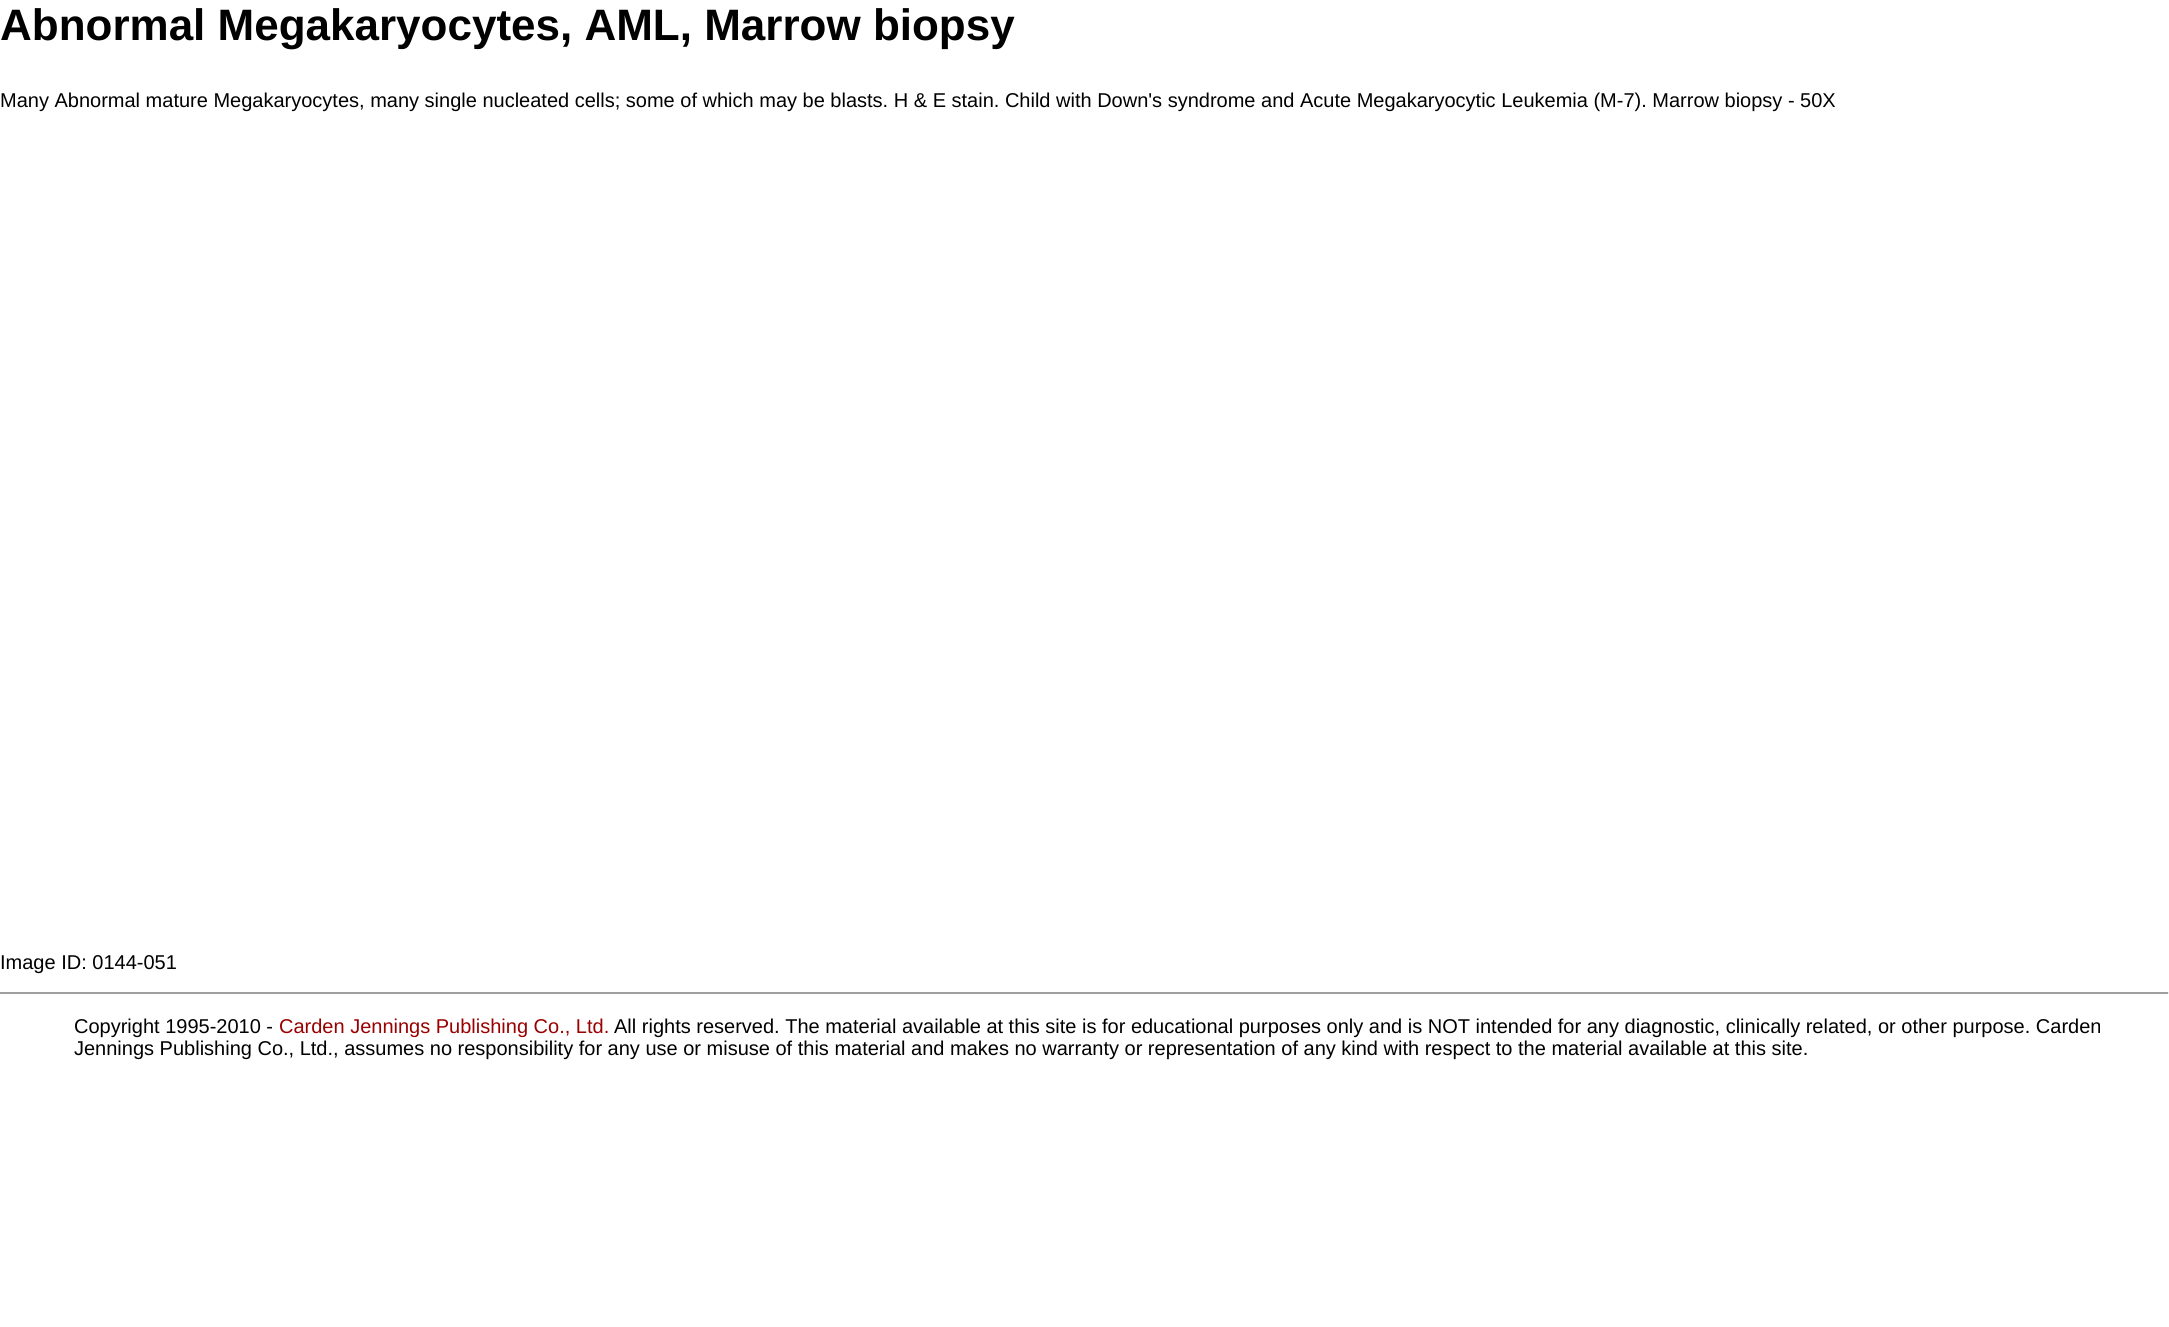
#include <cairo/cairo.h>
#include <math.h>
#include <stddef.h>

static cairo_t *cr;

static void use_color(int r, int g, int b) {
  cairo_set_source_rgb(cr, r / 255.0, g / 255.0, b / 255.0);
}

static void text(double x, double y, const char *s, const char *family, double size, int italic, int bold, int r, int g, int b) {
  cairo_select_font_face(cr, family, italic ? CAIRO_FONT_SLANT_ITALIC : CAIRO_FONT_SLANT_NORMAL,
    bold ? CAIRO_FONT_WEIGHT_BOLD : CAIRO_FONT_WEIGHT_NORMAL);
  cairo_set_font_size(cr, size);
  use_color(r, g, b);
  cairo_move_to(cr, x, y);
  cairo_show_text(cr, s);
}

static void box(double x, double y, double w, double h, int r, int g, int b) {
  use_color(r, g, b);
  cairo_rectangle(cr, x, y, w, h);
  cairo_fill(cr);
}

static void draw(void) {
  use_color(255, 255, 255);
  cairo_paint(cr);
  box(0, 992, 2169, 2, 159, 159, 159);
  box(2168, 992, 1, 2, 238, 238, 238);
  text(0, 40, "Abnormal Megakaryocytes, AML, Marrow biopsy", "Liberation Sans", 44, 0, 1, 0, 0, 0);
  text(0, 107, "Many Abnormal mature Megakaryocytes, many single nucleated cells; some of which may be blasts. H & E stain. Child with Down's syndrome and Acute Megakaryocytic Leukemia (M-7). Marrow biopsy - 50X", "Liberation Sans", 20, 0, 0, 0, 0, 0);
  text(0, 969, "Image ID: 0144-051", "Liberation Sans", 20, 0, 0, 0, 0, 0);
  text(74, 1033, "Copyright 1995-2010 -", "Liberation Sans", 20, 0, 0, 0, 0, 0);
  text(279, 1033, "Carden Jennings Publishing Co., Ltd.", "Liberation Sans", 20, 0, 0, 153, 0, 0);
  text(614, 1033, "All rights reserved. The material available at this site is for educational purposes only and is NOT intended for any diagnostic, clinically related, or other purpose. Carden", "Liberation Sans", 20, 0, 0, 0, 0, 0);
  text(74, 1055, "Jennings Publishing Co., Ltd., assumes no responsibility for any use or misuse of this material and makes no warranty or representation of any kind with respect to the material available at this site.", "Liberation Sans", 20, 0, 0, 0, 0, 0);
}

int main(void) {
  cairo_surface_t *surface = cairo_image_surface_create(CAIRO_FORMAT_RGB24, 2169, 1327);
  cr = cairo_create(surface);
  cairo_font_options_t *options = cairo_font_options_create();
  cairo_font_options_set_hint_metrics(options, CAIRO_HINT_METRICS_OFF);
  cairo_font_options_set_hint_style(options, CAIRO_HINT_STYLE_NONE);
  cairo_set_font_options(cr, options);
  cairo_set_miter_limit(cr, 4);
  draw();
  cairo_surface_write_to_png(surface, "out.png");
  cairo_font_options_destroy(options);
  cairo_destroy(cr);
  cairo_surface_destroy(surface);
  return 0;
}
